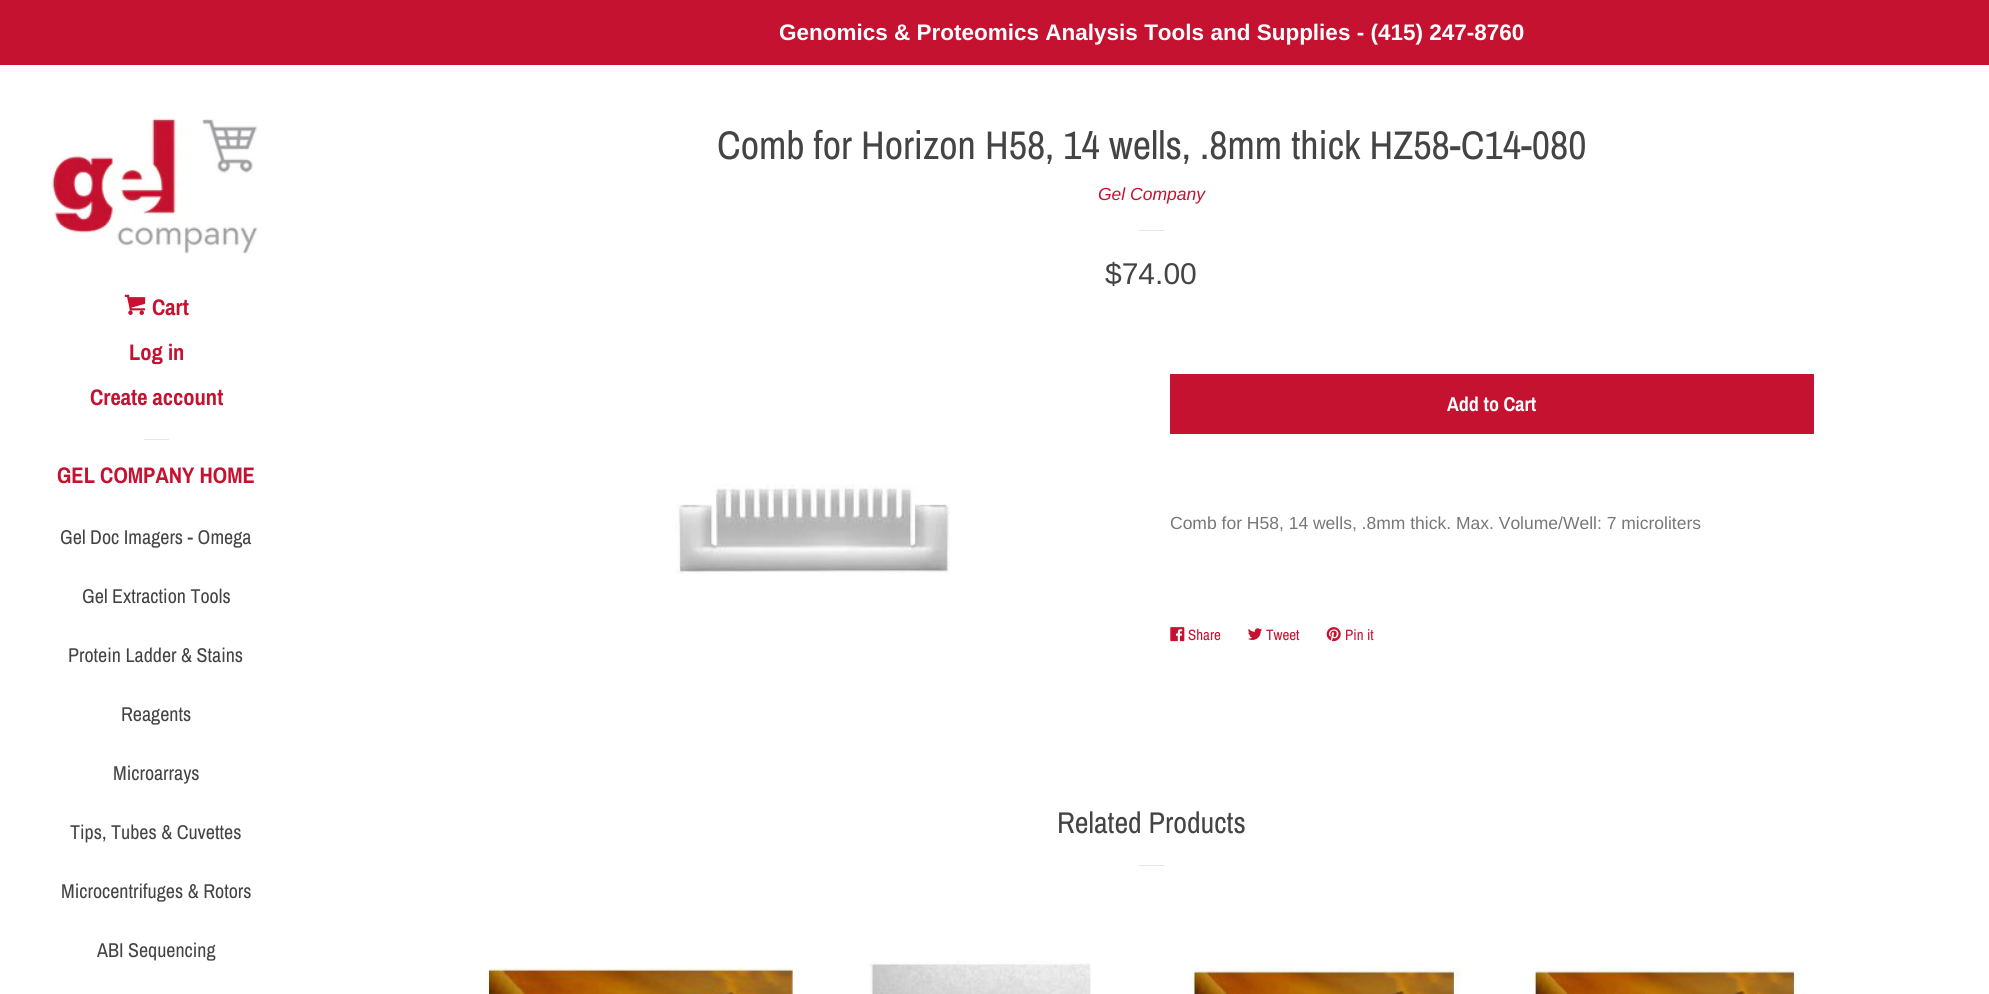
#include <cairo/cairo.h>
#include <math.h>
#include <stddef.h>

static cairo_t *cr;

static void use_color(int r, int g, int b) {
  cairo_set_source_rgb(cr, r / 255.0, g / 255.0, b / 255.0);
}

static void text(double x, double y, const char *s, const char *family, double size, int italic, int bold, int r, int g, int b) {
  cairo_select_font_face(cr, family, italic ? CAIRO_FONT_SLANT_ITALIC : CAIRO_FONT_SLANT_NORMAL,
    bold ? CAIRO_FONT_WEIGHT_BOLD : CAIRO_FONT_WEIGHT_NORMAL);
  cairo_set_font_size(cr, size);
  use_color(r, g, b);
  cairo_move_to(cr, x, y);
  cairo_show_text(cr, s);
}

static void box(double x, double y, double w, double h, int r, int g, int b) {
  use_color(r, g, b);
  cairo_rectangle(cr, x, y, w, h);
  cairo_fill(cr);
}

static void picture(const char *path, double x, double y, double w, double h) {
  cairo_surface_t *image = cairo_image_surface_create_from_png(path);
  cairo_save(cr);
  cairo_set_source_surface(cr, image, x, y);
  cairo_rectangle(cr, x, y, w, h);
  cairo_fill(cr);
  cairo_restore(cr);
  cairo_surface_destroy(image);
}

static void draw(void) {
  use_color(255, 255, 255);
  cairo_paint(cr);
  picture("img_01.png", 50, 118, 208, 136);
  picture("img_02.png", 124, 294, 22, 21);
  box(144, 439, 25, 1, 230, 230, 230);
  box(0, 0, 1989, 65, 197, 18, 48);
  box(1139, 230, 25, 1, 231, 231, 231);
  picture("img_03.png", 675, 484, 275, 90);
  box(1170, 374, 644, 60, 197, 18, 48);
  picture("img_04.png", 1170, 627, 15, 15);
  picture("img_05.png", 1248, 628, 14, 12);
  picture("img_06.png", 1326, 627, 15, 15);
  box(1139, 865, 25, 1, 231, 231, 231);
  picture("img_07.png", 489, 967, 304, 27);
  picture("img_08.png", 869, 961, 222, 33);
  picture("img_09.png", 1189, 967, 272, 27);
  picture("img_10.png", 1530, 967, 271, 27);
  text(152, 315, "Cart", "Archivo Narrow", 22.5, 0, 1, 197, 18, 48);
  text(129, 360, "Log in", "Archivo Narrow", 22.5, 0, 1, 197, 18, 48);
  text(90, 405, "Create account", "Archivo Narrow", 22.5, 0, 1, 197, 18, 48);
  text(57, 483, "GEL COMPANY HOME", "Archivo Narrow", 22.5, 0, 1, 197, 18, 48);
  text(60, 544, "Gel Doc Imagers - Omega", "Archivo Narrow", 20, 0, 0, 68, 68, 68);
  text(82, 603, "Gel Extraction Tools", "Archivo Narrow", 20, 0, 0, 68, 68, 68);
  text(68, 662, "Protein Ladder & Stains", "Archivo Narrow", 20, 0, 0, 68, 68, 68);
  text(121, 721, "Reagents", "Archivo Narrow", 20, 0, 0, 68, 68, 68);
  text(113, 780, "Microarrays", "Archivo Narrow", 20, 0, 0, 68, 68, 68);
  text(70, 839, "Tips, Tubes & Cuvettes", "Archivo Narrow", 20, 0, 0, 68, 68, 68);
  text(61, 898, "Microcentrifuges & Rotors", "Archivo Narrow", 20, 0, 0, 68, 68, 68);
  text(97, 957, "ABI Sequencing", "Archivo Narrow", 20, 0, 0, 68, 68, 68);
  text(779, 40, "Genomics & Proteomics Analysis Tools and Supplies - (415) 247-8760", "Liberation Sans", 22.5, 0, 1, 255, 255, 255);
  text(717, 159, "Comb for Horizon H58, 14 wells, .8mm thick HZ58-C14-080", "Archivo Narrow", 40, 0, 0, 68, 68, 68);
  text(1098, 200, "Gel Company", "Liberation Sans", 17.5, 1, 0, 197, 18, 48);
  text(1105, 284, "$74.00", "Liberation Sans", 30, 0, 0, 68, 68, 68);
  text(1447, 411, "Add to Cart", "Archivo Narrow", 20, 0, 1, 255, 255, 255);
  text(1170, 529, "Comb for H58, 14 wells, .8mm thick. Max. Volume/Well: 7 microliters", "Liberation Sans", 17.5, 0, 0, 119, 119, 119);
  text(1188, 640, "Share", "Archivo Narrow", 15, 0, 0, 197, 18, 48);
  text(1266, 640, "Tweet", "Archivo Narrow", 15, 0, 0, 197, 18, 48);
  text(1345, 640, "Pin it", "Archivo Narrow", 15, 0, 0, 197, 18, 48);
  text(1057, 833, "Related Products", "Archivo Narrow", 30, 0, 0, 68, 68, 68);
}

int main(void) {
  cairo_surface_t *surface = cairo_image_surface_create(CAIRO_FORMAT_RGB24, 1989, 994);
  cr = cairo_create(surface);
  cairo_font_options_t *options = cairo_font_options_create();
  cairo_font_options_set_hint_metrics(options, CAIRO_HINT_METRICS_OFF);
  cairo_font_options_set_hint_style(options, CAIRO_HINT_STYLE_NONE);
  cairo_set_font_options(cr, options);
  cairo_set_miter_limit(cr, 4);
  draw();
  cairo_surface_write_to_png(surface, "out.png");
  cairo_font_options_destroy(options);
  cairo_destroy(cr);
  cairo_surface_destroy(surface);
  return 0;
}
